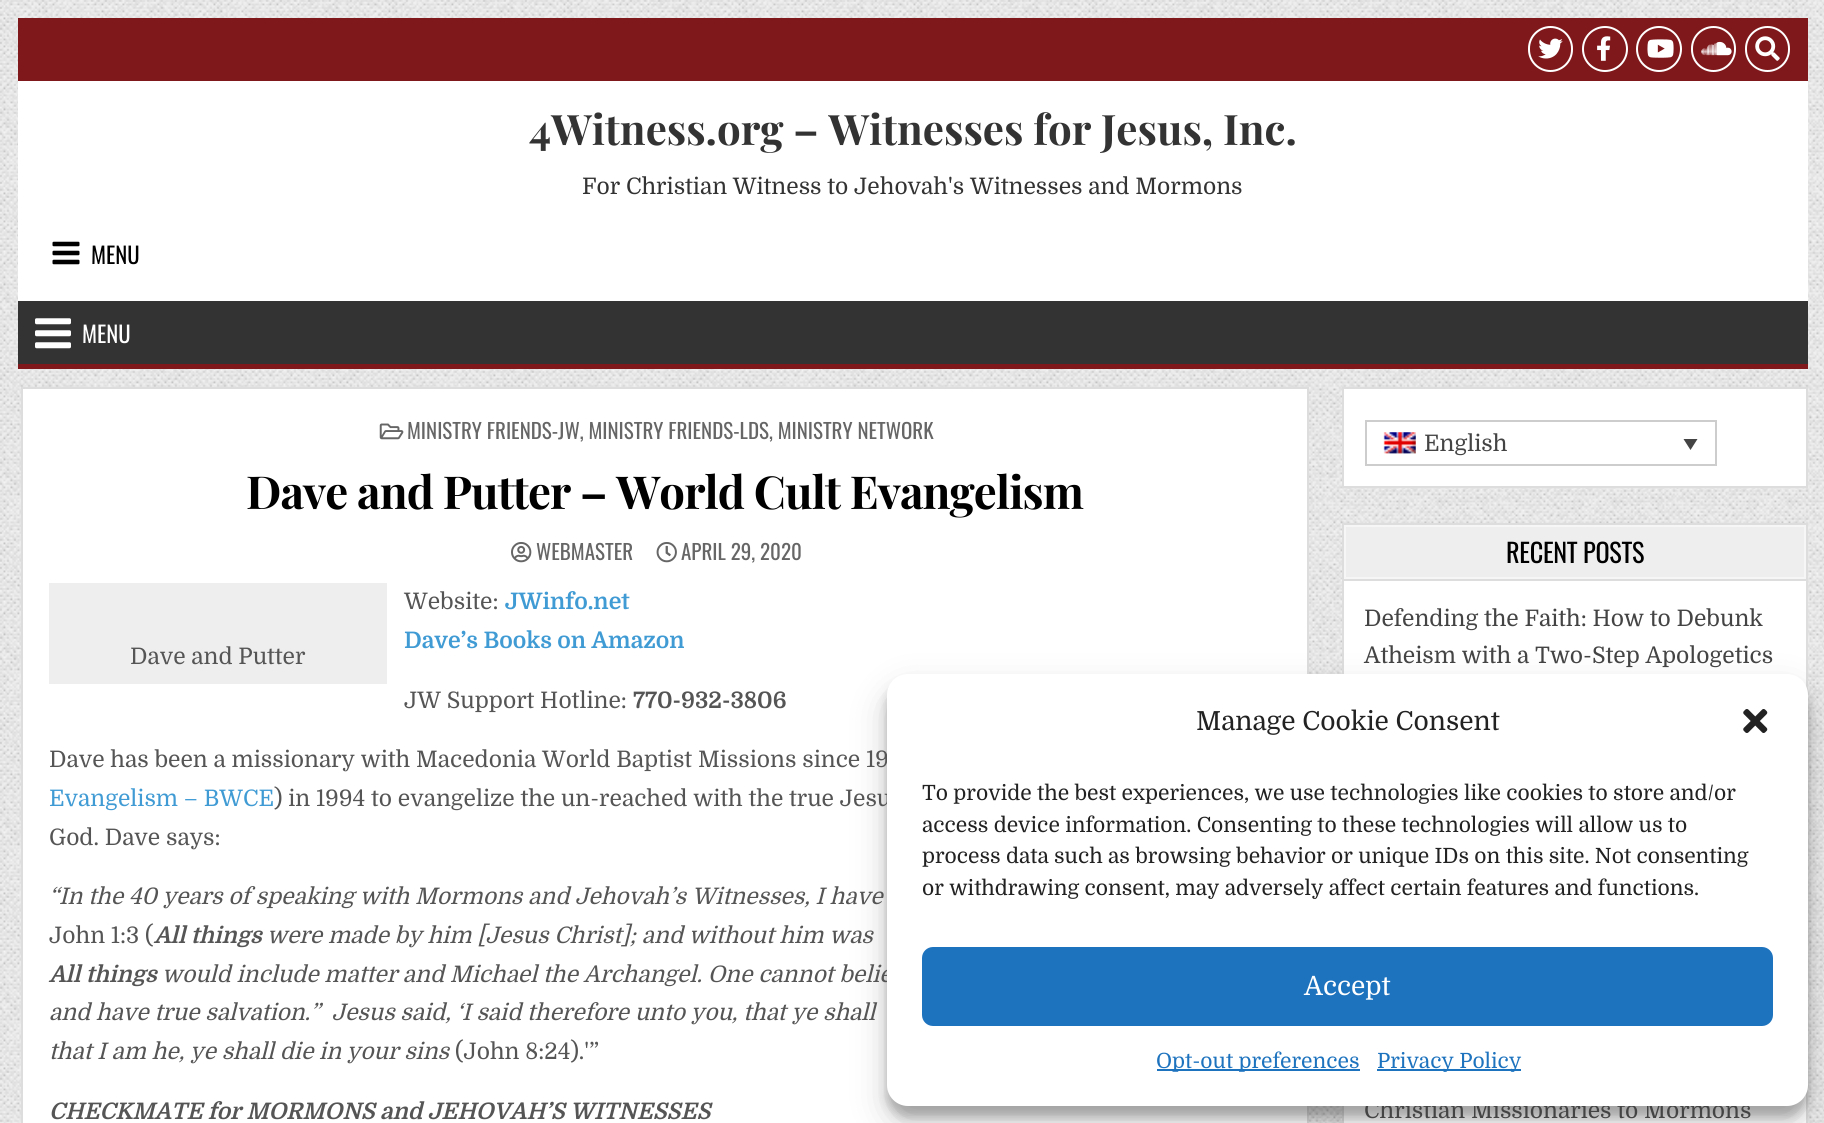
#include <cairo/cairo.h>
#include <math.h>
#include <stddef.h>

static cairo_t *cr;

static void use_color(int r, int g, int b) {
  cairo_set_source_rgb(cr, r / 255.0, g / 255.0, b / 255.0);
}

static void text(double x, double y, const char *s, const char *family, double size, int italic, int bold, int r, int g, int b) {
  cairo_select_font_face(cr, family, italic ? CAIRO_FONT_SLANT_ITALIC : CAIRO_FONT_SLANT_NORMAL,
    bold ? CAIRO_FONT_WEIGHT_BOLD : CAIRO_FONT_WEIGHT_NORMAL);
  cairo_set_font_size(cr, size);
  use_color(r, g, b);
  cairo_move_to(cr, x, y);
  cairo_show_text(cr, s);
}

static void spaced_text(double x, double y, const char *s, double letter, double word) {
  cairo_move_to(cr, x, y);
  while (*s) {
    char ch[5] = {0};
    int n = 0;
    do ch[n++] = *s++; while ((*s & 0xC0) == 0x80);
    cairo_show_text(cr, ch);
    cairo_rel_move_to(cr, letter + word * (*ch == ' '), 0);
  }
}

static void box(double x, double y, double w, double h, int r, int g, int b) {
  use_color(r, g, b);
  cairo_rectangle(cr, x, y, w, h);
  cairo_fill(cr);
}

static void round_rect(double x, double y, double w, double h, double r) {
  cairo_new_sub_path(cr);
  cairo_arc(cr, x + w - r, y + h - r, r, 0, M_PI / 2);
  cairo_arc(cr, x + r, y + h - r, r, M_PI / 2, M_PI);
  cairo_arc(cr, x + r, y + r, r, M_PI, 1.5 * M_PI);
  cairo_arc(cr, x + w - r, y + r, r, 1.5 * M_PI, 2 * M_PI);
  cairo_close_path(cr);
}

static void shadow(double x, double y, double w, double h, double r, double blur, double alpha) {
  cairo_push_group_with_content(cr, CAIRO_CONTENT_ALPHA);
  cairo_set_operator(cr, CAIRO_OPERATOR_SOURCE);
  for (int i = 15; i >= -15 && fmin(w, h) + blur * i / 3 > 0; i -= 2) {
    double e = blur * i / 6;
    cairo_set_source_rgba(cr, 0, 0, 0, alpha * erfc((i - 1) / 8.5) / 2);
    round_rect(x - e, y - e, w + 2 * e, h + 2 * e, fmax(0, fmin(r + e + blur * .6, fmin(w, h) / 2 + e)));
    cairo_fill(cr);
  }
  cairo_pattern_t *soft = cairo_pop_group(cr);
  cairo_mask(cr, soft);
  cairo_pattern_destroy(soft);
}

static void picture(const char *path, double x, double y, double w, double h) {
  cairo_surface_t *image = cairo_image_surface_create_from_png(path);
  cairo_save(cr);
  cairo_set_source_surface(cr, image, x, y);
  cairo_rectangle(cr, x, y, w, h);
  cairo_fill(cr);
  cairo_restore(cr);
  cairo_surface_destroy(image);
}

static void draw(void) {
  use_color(255, 255, 255);
  cairo_paint(cr);
  picture("img_01.png", 0, 0, 1824, 1123);
  box(18, 18, 1790, 63, 127, 24, 27);
  round_rect(1529, 27, 43, 44, 21.5);
  use_color(255, 255, 255);
  cairo_stroke(cr);
  picture("img_02.png", 1538, 38, 25, 21);
  cairo_arc(cr, 1605, 49, 22, 0, 2 * M_PI);
  cairo_stroke(cr);
  picture("img_03.png", 1597, 36, 14, 25);
  cairo_arc(cr, 1659, 49, 22, 0, 2 * M_PI);
  cairo_stroke(cr);
  picture("img_04.png", 1647, 39, 27, 19);
  round_rect(1692, 27, 43, 44, 21.5);
  cairo_stroke(cr);
  picture("img_05.png", 1701, 41, 31, 15);
  round_rect(1746, 27, 43, 44, 21.5);
  cairo_stroke(cr);
  picture("img_06.png", 1755, 36, 25, 25);
  box(18, 81, 1790, 220, 255, 255, 255);
  picture("img_07.png", 52, 241, 28, 24);
  box(18, 301, 1790, 63, 51, 51, 51);
  box(18, 364, 1790, 5, 127, 24, 27);
  picture("img_08.png", 35, 318, 36, 31);
  use_color(255, 255, 255);
  cairo_rectangle(cr, 22, 388, 1286, 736);
  cairo_fill_preserve(cr);
  use_color(221, 221, 221);
  cairo_stroke(cr);
  picture("img_09.png", 379, 423, 25, 17);
  picture("img_10.png", 511, 542, 21, 21);
  picture("img_11.png", 656, 542, 21, 21);
  box(49, 583, 338, 101, 238, 238, 238);
  use_color(255, 255, 255);
  cairo_rectangle(cr, 1343, 388, 464, 99);
  cairo_fill_preserve(cr);
  use_color(221, 221, 221);
  cairo_stroke(cr);
  cairo_rectangle(cr, 1366, 421, 350, 44);
  use_color(205, 205, 205);
  cairo_stroke(cr);
  picture("img_12.png", 1383, 432, 33, 22);
  use_color(68, 68, 68);
  cairo_new_path(cr);
  cairo_move_to(cr, 1683.5, 439);
  cairo_line_to(cr, 1697.5, 439);
  cairo_line_to(cr, 1690.5, 450);
  cairo_close_path(cr);
  cairo_fill(cr);
  box(1344, 581, 462, 542, 255, 255, 255);
  cairo_rectangle(cr, 1343, 524, 464, 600);
  use_color(221, 221, 221);
  cairo_stroke(cr);
  box(1344, 579, 462, 2, 221, 221, 221);
  use_color(238, 238, 238);
  cairo_rectangle(cr, 1345, 526, 460, 52);
  cairo_fill_preserve(cr);
  use_color(246, 246, 246);
  cairo_stroke(cr);
  use_color(0, 0, 0);
  shadow(887, 684, 921, 433, 21, 5, 0.23);
  shadow(887, 691, 921, 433, 21, 17.5, 0.19);
  text(529, 145, "4Witness.org – Witnesses for Jesus, Inc.", "Playfair Display", 42, 0, 1, 51, 51, 51);
  text(582, 194, "For Christian Witness to Jehovah's Witnesses and Mormons", "Domine", 22.75, 0, 0, 51, 51, 51);
  text(91, 264, "MENU", "Oswald", 22.75, 0, 0, 0, 0, 0);
  text(82, 343, "MENU", "Oswald", 22.75, 0, 0, 255, 255, 255);
  text(407, 439, "MINISTRY FRIENDS-JW, MINISTRY FRIENDS-LDS, MINISTRY NETWORK", "Oswald", 21, 0, 0, 102, 102, 102);
  cairo_select_font_face(cr, "Playfair Display", CAIRO_FONT_SLANT_NORMAL, CAIRO_FONT_WEIGHT_BOLD);
  cairo_set_font_size(cr, 45.5);
  use_color(0, 0, 0);
  spaced_text(246, 509, "Dave and Putter – World Cult Evangelism", -0.9, 0);
  text(536, 560, "WEBMASTER", "Oswald", 21, 0, 0, 102, 102, 102);
  text(681, 560, "APRIL 29, 2020", "Oswald", 21, 0, 0, 102, 102, 102);
  text(404, 609, "Website:", "Domine", 22.75, 0, 0, 85, 85, 85);
  text(505, 609, "JWinfo.net", "Domine", 22.75, 0, 1, 64, 155, 212);
  text(404, 648, "Dave’s Books on Amazon", "Domine", 22.75, 0, 1, 64, 155, 212);
  text(130, 664, "Dave and Putter", "Domine", 22.75, 0, 0, 85, 85, 85);
  text(404, 708, "JW Support Hotline:", "Domine", 22.75, 0, 0, 85, 85, 85);
  text(633, 708, "770-932-3806", "Domine", 22.75, 0, 1, 85, 85, 85);
  text(49, 767, "Dave has been a missionary with Macedonia World Baptist Missions since 19", "Domine", 22.75, 0, 0, 85, 85, 85);
  text(49, 806, "Evangelism – BWCE", "Domine", 22.75, 0, 0, 64, 155, 212);
  text(274, 806, ") in 1994 to evangelize the un-reached with the true Jesu", "Domine", 22.75, 0, 0, 85, 85, 85);
  text(49, 845, "God. Dave says:", "Domine", 22.75, 0, 0, 85, 85, 85);
  text(49, 904, "“In the 40 years of speaking with Mormons and Jehovah’s Witnesses, I have", "Domine", 22.75, 1, 0, 85, 85, 85);
  text(49, 943, "John 1:3 (", "Domine", 22.75, 0, 0, 85, 85, 85);
  text(154, 943, "All things", "Domine", 22.75, 1, 1, 85, 85, 85);
  text(267, 943, "were made by him [Jesus Christ]; and without him was", "Domine", 22.75, 1, 0, 85, 85, 85);
  text(49, 982, "All things", "Domine", 22.75, 1, 1, 85, 85, 85);
  text(162, 982, "would include matter and Michael the Archangel. One cannot belie", "Domine", 22.75, 1, 0, 85, 85, 85);
  text(49, 1020, "and have true salvation.”  Jesus said, ‘I said therefore unto you, that ye shall", "Domine", 22.75, 1, 0, 85, 85, 85);
  text(49, 1059, "that I am he, ye shall die in your sins", "Domine", 22.75, 1, 0, 85, 85, 85);
  text(455, 1059, "(John 8:24).'”", "Domine", 22.75, 0, 0, 85, 85, 85);
  text(49, 1119, "CHECKMATE for MORMONS and JEHOVAH’S WITNESSES", "Domine", 22.75, 1, 1, 85, 85, 85);
  text(1424, 451, "English", "Domine", 22.75, 0, 0, 68, 68, 68);
  cairo_select_font_face(cr, "Oswald", CAIRO_FONT_SLANT_NORMAL, CAIRO_FONT_WEIGHT_NORMAL);
  cairo_set_font_size(cr, 26.25);
  use_color(0, 0, 0);
  spaced_text(1506, 563, "RECENT POSTS", -0.3, 0);
  text(1364, 626, "Defending the Faith: How to Debunk", "Domine", 22.75, 0, 0, 68, 68, 68);
  text(1364, 663, "Atheism with a Two-Step Apologetics", "Domine", 22.75, 0, 0, 68, 68, 68);
  text(1364, 1118, "Christian Missionaries to Mormons", "Domine", 22.75, 0, 0, 68, 68, 68);
  use_color(255, 255, 255);
  round_rect(887, 674, 921, 432, 21);
  cairo_fill(cr);
  text(1196, 730, "Manage Cookie Consent", "Domine", 26.25, 0, 0, 34, 34, 34);
  picture("img_13.png", 1743, 709, 25, 24);
  text(922, 800, "To provide the best experiences, we use technologies like cookies to store and/or", "Domine", 21, 0, 0, 34, 34, 34);
  text(922, 832, "access device information. Consenting to these technologies will allow us to", "Domine", 21, 0, 0, 34, 34, 34);
  text(922, 863, "process data such as browsing behavior or unique IDs on this site. Not consenting", "Domine", 21, 0, 0, 34, 34, 34);
  text(922, 895, "or withdrawing consent, may adversely affect certain features and functions.", "Domine", 21, 0, 0, 34, 34, 34);
  use_color(30, 115, 190);
  round_rect(923, 948, 849, 77, 10);
  cairo_fill_preserve(cr);
  cairo_stroke(cr);
  text(1304, 995, "Accept", "Domine", 26.25, 0, 0, 255, 255, 255);
  box(1157, 1069, 203, 2, 30, 115, 190);
  text(1156, 1068, "Opt-out preferences", "Domine", 21, 0, 0, 30, 115, 190);
  box(1377, 1069, 144, 2, 30, 115, 190);
  text(1377, 1068, "Privacy Policy", "Domine", 21, 0, 0, 30, 115, 190);
}

int main(void) {
  cairo_surface_t *surface = cairo_image_surface_create(CAIRO_FORMAT_RGB24, 1824, 1123);
  cr = cairo_create(surface);
  cairo_font_options_t *options = cairo_font_options_create();
  cairo_font_options_set_hint_metrics(options, CAIRO_HINT_METRICS_OFF);
  cairo_font_options_set_hint_style(options, CAIRO_HINT_STYLE_NONE);
  cairo_set_font_options(cr, options);
  cairo_set_miter_limit(cr, 4);
  draw();
  cairo_surface_write_to_png(surface, "out.png");
  cairo_font_options_destroy(options);
  cairo_destroy(cr);
  cairo_surface_destroy(surface);
  return 0;
}
